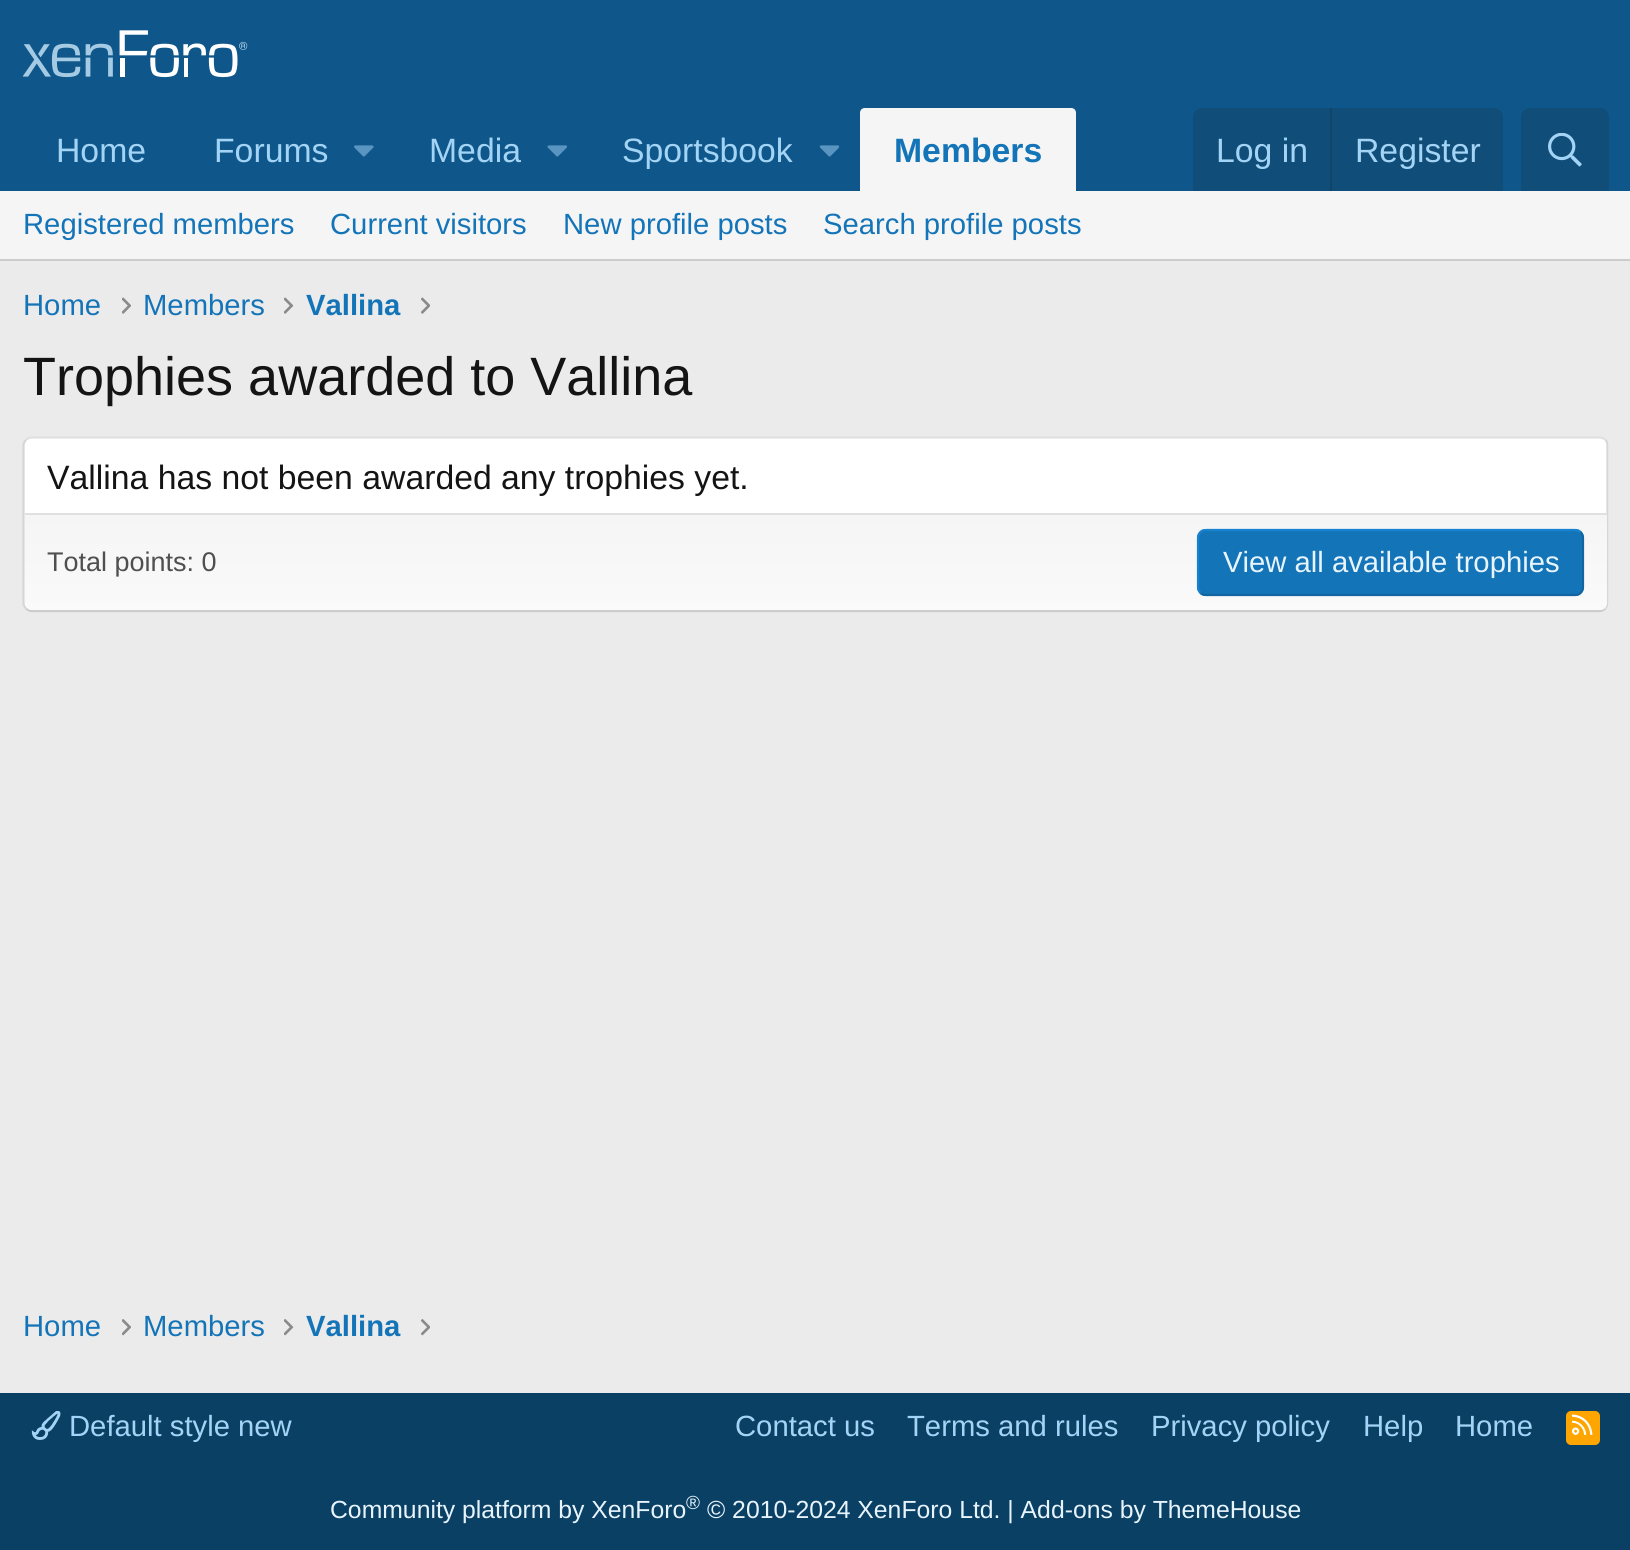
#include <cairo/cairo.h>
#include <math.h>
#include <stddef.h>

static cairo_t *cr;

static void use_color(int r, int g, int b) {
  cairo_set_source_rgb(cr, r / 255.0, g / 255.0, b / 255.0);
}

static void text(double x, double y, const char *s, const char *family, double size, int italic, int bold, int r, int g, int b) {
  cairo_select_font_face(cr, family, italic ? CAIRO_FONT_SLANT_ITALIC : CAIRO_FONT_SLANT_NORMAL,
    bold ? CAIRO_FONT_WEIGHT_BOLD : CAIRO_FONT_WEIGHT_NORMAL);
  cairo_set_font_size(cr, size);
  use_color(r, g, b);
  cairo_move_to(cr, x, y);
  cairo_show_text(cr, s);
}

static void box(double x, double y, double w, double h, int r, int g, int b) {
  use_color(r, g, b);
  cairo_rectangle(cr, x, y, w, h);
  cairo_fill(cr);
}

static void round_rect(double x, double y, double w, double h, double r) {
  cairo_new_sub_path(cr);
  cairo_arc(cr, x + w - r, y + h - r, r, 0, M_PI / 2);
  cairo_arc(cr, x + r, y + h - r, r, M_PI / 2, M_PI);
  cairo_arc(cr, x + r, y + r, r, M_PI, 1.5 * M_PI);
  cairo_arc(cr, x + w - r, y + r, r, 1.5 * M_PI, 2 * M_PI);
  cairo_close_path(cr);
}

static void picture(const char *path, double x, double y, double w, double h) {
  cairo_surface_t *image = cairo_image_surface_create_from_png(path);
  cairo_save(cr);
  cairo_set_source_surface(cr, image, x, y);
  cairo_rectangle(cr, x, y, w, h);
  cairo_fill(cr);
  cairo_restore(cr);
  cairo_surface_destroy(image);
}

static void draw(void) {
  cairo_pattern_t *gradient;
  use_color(235, 235, 235);
  cairo_paint(cr);
  box(0, 0, 1630, 191, 15, 87, 138);
  picture("img_01.png", 23, 30, 225, 48);
  picture("img_02.png", 354, 145, 20, 12);
  picture("img_03.png", 547, 145, 20, 12);
  picture("img_04.png", 819, 145, 20, 12);
  use_color(245, 245, 245);
  cairo_new_path(cr);
  cairo_move_to(cr, 865, 108);
  cairo_line_to(cr, 1071, 108);
  cairo_curve_to(cr, 1074, 108, 1076, 110, 1076, 113);
  cairo_line_to(cr, 1076, 191);
  cairo_line_to(cr, 860, 191);
  cairo_line_to(cr, 860, 113);
  cairo_curve_to(cr, 860, 110, 862, 108, 865, 108);
  cairo_close_path(cr);
  cairo_fill(cr);
  use_color(16, 77, 120);
  cairo_new_path(cr);
  cairo_move_to(cr, 1202, 108);
  cairo_line_to(cr, 1494, 108);
  cairo_curve_to(cr, 1499, 108, 1503, 112, 1503, 117);
  cairo_line_to(cr, 1503, 191);
  cairo_line_to(cr, 1193, 191);
  cairo_line_to(cr, 1193, 117);
  cairo_curve_to(cr, 1193, 112, 1197, 108, 1202, 108);
  cairo_close_path(cr);
  cairo_fill(cr);
  box(1330, 108, 2, 83, 17, 68, 105);
  use_color(16, 77, 120);
  cairo_new_path(cr);
  cairo_move_to(cr, 1530, 108);
  cairo_line_to(cr, 1600, 108);
  cairo_curve_to(cr, 1605, 108, 1609, 112, 1609, 117);
  cairo_line_to(cr, 1609, 191);
  cairo_line_to(cr, 1521, 191);
  cairo_line_to(cr, 1521, 117);
  cairo_curve_to(cr, 1521, 112, 1525, 108, 1530, 108);
  cairo_close_path(cr);
  cairo_fill(cr);
  picture("img_05.png", 1548, 133, 34, 34);
  box(0, 191, 1630, 68, 245, 245, 245);
  box(0, 259, 1630, 2, 204, 204, 204);
  picture("img_06.png", 122, 297, 9, 17);
  picture("img_07.png", 284, 297, 10, 17);
  picture("img_08.png", 421, 297, 9, 17);
  use_color(255, 255, 255);
  round_rect(23, 437, 1586, 175, 9);
  cairo_fill(cr);
  cairo_new_path(cr);
  cairo_move_to(cr, 26, 440);
  cairo_curve_to(cr, 27.5, 438.5, 29.5, 437.5, 31.5, 437.5);
  cairo_line_to(cr, 1600, 437.5);
  cairo_curve_to(cr, 1602, 437.5, 1604, 438.5, 1605.5, 440);
  use_color(224, 224, 224);
  cairo_set_line_width(cr, 2.2);
  cairo_stroke(cr);
  cairo_new_path(cr);
  cairo_move_to(cr, 1605.5, 440);
  cairo_curve_to(cr, 1607, 441.5, 1607.5, 443.5, 1607.5, 445.5);
  cairo_line_to(cr, 1607.5, 603);
  cairo_curve_to(cr, 1607.5, 605, 1607, 607, 1605.5, 608.5);
  use_color(214, 214, 214);
  cairo_stroke(cr);
  cairo_new_path(cr);
  cairo_move_to(cr, 1605.5, 608.5);
  cairo_curve_to(cr, 1604, 610, 1602, 611, 1600, 611);
  cairo_line_to(cr, 31.5, 611);
  cairo_curve_to(cr, 29.5, 611, 27.5, 610, 26, 608.5);
  use_color(204, 204, 204);
  cairo_stroke(cr);
  cairo_new_path(cr);
  cairo_move_to(cr, 26, 608.5);
  cairo_curve_to(cr, 24.5, 607, 23.5, 605, 23.5, 603);
  cairo_line_to(cr, 23.5, 445.5);
  cairo_curve_to(cr, 23.5, 443.5, 24.5, 441.5, 26, 440);
  use_color(214, 214, 214);
  cairo_stroke(cr);
  gradient = cairo_pattern_create_linear(816, 515, 816, 610);
  cairo_pattern_add_color_stop_rgba(gradient, 0, 0.961, 0.961, 0.961, 1);
  cairo_pattern_add_color_stop_rgba(gradient, 1, 0.98, 0.98, 0.98, 1);
  cairo_set_source(cr, gradient);
  cairo_pattern_destroy(gradient);
  cairo_new_path(cr);
  cairo_move_to(cr, 25, 515);
  cairo_line_to(cr, 1607, 515);
  cairo_line_to(cr, 1607, 603);
  cairo_curve_to(cr, 1607, 607, 1604, 610, 1600, 610);
  cairo_line_to(cr, 32, 610);
  cairo_curve_to(cr, 28, 610, 25, 607, 25, 603);
  cairo_close_path(cr);
  cairo_fill(cr);
  box(25, 513, 1582, 2, 224, 224, 224);
  use_color(20, 116, 184);
  round_rect(1197, 529, 387, 67, 9);
  cairo_fill(cr);
  cairo_new_path(cr);
  cairo_move_to(cr, 1580.5, 532);
  cairo_curve_to(cr, 1582, 533.5, 1583, 535.5, 1583, 538);
  cairo_line_to(cr, 1583, 587);
  cairo_curve_to(cr, 1583, 589.5, 1582, 591.5, 1580.5, 593);
  cairo_curve_to(cr, 1579, 594.5, 1577, 595, 1575, 595);
  cairo_line_to(cr, 1206, 595);
  cairo_curve_to(cr, 1204, 595, 1202, 594.5, 1200.5, 593);
  use_color(18, 101, 161);
  cairo_stroke(cr);
  cairo_new_path(cr);
  cairo_move_to(cr, 1200.5, 593);
  cairo_curve_to(cr, 1199, 591.5, 1198, 589.5, 1198, 587);
  cairo_line_to(cr, 1198, 538);
  cairo_curve_to(cr, 1198, 535.5, 1199, 533.5, 1200.5, 532);
  cairo_curve_to(cr, 1202, 530.5, 1204, 530, 1206, 530);
  cairo_line_to(cr, 1575, 530);
  cairo_curve_to(cr, 1577, 530, 1579, 530.5, 1580.5, 532);
  use_color(23, 130, 207);
  cairo_stroke(cr);
  picture("img_09.png", 122, 1319, 9, 17);
  picture("img_10.png", 284, 1319, 10, 17);
  picture("img_11.png", 421, 1319, 9, 17);
  box(0, 1393, 1630, 157, 11, 64, 101);
  picture("img_12.png", 31, 1411, 30, 29);
  use_color(255, 165, 0);
  round_rect(1566, 1411, 34, 34, 5);
  cairo_fill(cr);
  picture("img_13.png", 1571, 1414, 22, 21);
  text(56, 162, "Home", "Liberation Sans", 33.75, 0, 0, 163, 212, 245);
  text(214, 162, "Forums", "Liberation Sans", 33.75, 0, 0, 163, 212, 245);
  text(429, 162, "Media", "Liberation Sans", 33.75, 0, 0, 163, 212, 245);
  text(622, 162, "Sportsbook", "Liberation Sans", 33.75, 0, 0, 163, 212, 245);
  text(894, 162, "Members", "Liberation Sans", 33.75, 0, 1, 20, 116, 184);
  text(1216, 162, "Log in", "Liberation Sans", 33.75, 0, 0, 163, 212, 245);
  text(1355, 162, "Register", "Liberation Sans", 33.75, 0, 0, 163, 212, 245);
  text(23, 234, "Registered members", "Liberation Sans", 29.25, 0, 0, 20, 116, 184);
  text(330, 234, "Current visitors", "Liberation Sans", 29.25, 0, 0, 20, 116, 184);
  text(563, 234, "New profile posts", "Liberation Sans", 29.25, 0, 0, 20, 116, 184);
  text(823, 234, "Search profile posts", "Liberation Sans", 29.25, 0, 0, 20, 116, 184);
  text(23, 315, "Home", "Liberation Sans", 29.25, 0, 0, 20, 116, 184);
  text(143, 315, "Members", "Liberation Sans", 29.25, 0, 0, 20, 116, 184);
  text(306, 315, "Vallina", "Liberation Sans", 29.25, 0, 1, 20, 116, 184);
  text(23, 395, "Trophies awarded to Vallina", "Liberation Sans", 54, 0, 0, 20, 20, 20);
  text(47, 489, "Vallina has not been awarded any trophies yet.", "Liberation Sans", 33.75, 0, 0, 20, 20, 20);
  text(47, 571, "Total points: 0", "Liberation Sans", 27, 0, 0, 79, 79, 79);
  text(1223, 572, "View all available trophies", "Liberation Sans", 29.25, 0, 0, 232, 244, 252);
  text(23, 1336, "Home", "Liberation Sans", 29.25, 0, 0, 20, 116, 184);
  text(143, 1336, "Members", "Liberation Sans", 29.25, 0, 0, 20, 116, 184);
  text(306, 1336, "Vallina", "Liberation Sans", 29.25, 0, 1, 20, 116, 184);
  text(69, 1436, "Default style new", "Liberation Sans", 29.25, 0, 0, 163, 212, 245);
  text(735, 1436, "Contact us", "Liberation Sans", 29.25, 0, 0, 163, 212, 245);
  text(907, 1436, "Terms and rules", "Liberation Sans", 29.25, 0, 0, 163, 212, 245);
  text(1151, 1436, "Privacy policy", "Liberation Sans", 29.25, 0, 0, 163, 212, 245);
  text(1363, 1436, "Help", "Liberation Sans", 29.25, 0, 0, 163, 212, 245);
  text(1455, 1436, "Home", "Liberation Sans", 29.25, 0, 0, 163, 212, 245);
  text(330, 1518, "Community platform by XenForo", "Liberation Sans", 24.75, 0, 0, 232, 244, 252);
  text(686, 1509, "®", "Liberation Sans", 19, 0, 0, 232, 244, 252);
  text(707, 1518, "© 2010-2024 XenForo Ltd. | Add-ons by ThemeHouse", "Liberation Sans", 24.75, 0, 0, 232, 244, 252);
}

int main(void) {
  cairo_surface_t *surface = cairo_image_surface_create(CAIRO_FORMAT_RGB24, 1630, 1550);
  cr = cairo_create(surface);
  cairo_font_options_t *options = cairo_font_options_create();
  cairo_font_options_set_hint_metrics(options, CAIRO_HINT_METRICS_OFF);
  cairo_font_options_set_hint_style(options, CAIRO_HINT_STYLE_NONE);
  cairo_set_font_options(cr, options);
  cairo_set_miter_limit(cr, 4);
  draw();
  cairo_surface_write_to_png(surface, "out.png");
  cairo_font_options_destroy(options);
  cairo_destroy(cr);
  cairo_surface_destroy(surface);
  return 0;
}
